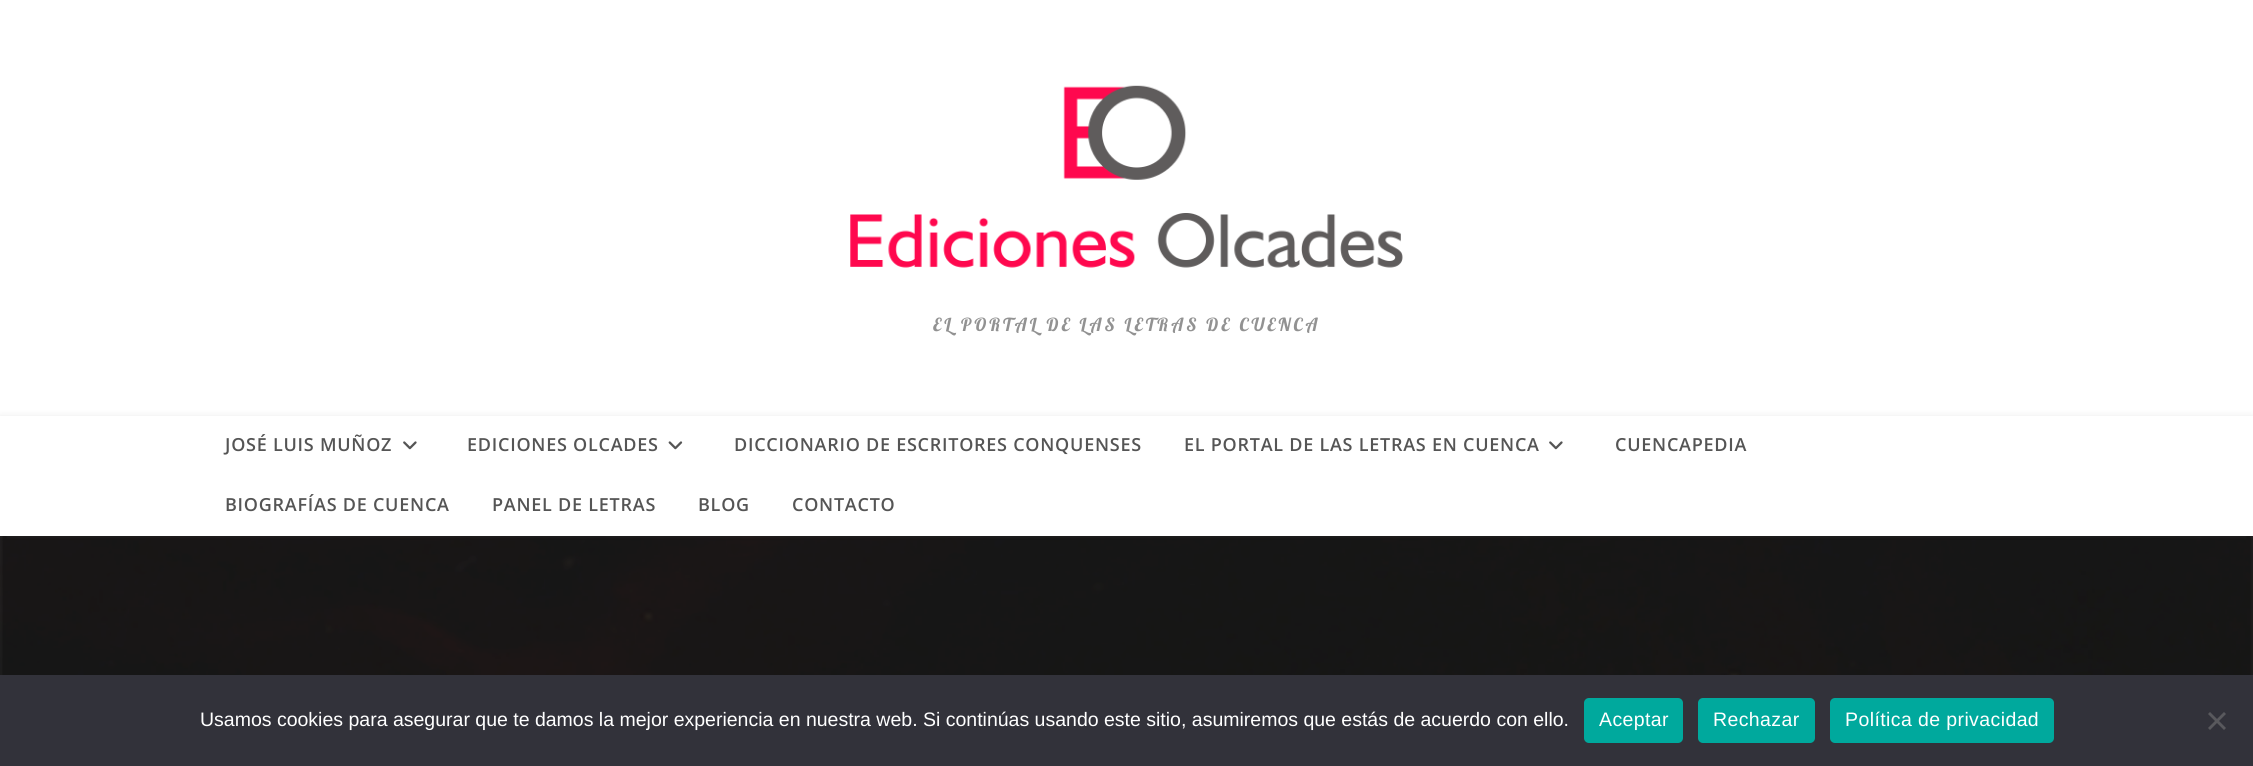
#include <cairo/cairo.h>
#include <math.h>
#include <stddef.h>

static cairo_t *cr;

static void use_color(int r, int g, int b) {
  cairo_set_source_rgb(cr, r / 255.0, g / 255.0, b / 255.0);
}

static void text(double x, double y, const char *s, const char *family, double size, int italic, int bold, int r, int g, int b) {
  cairo_select_font_face(cr, family, italic ? CAIRO_FONT_SLANT_ITALIC : CAIRO_FONT_SLANT_NORMAL,
    bold ? CAIRO_FONT_WEIGHT_BOLD : CAIRO_FONT_WEIGHT_NORMAL);
  cairo_set_font_size(cr, size);
  use_color(r, g, b);
  cairo_move_to(cr, x, y);
  cairo_show_text(cr, s);
}

static void spaced_text(double x, double y, const char *s, double letter, double word) {
  cairo_move_to(cr, x, y);
  while (*s) {
    char ch[5] = {0};
    int n = 0;
    do ch[n++] = *s++; while ((*s & 0xC0) == 0x80);
    cairo_show_text(cr, ch);
    cairo_rel_move_to(cr, letter + word * (*ch == ' '), 0);
  }
}

static void box(double x, double y, double w, double h, int r, int g, int b) {
  use_color(r, g, b);
  cairo_rectangle(cr, x, y, w, h);
  cairo_fill(cr);
}

static void round_rect(double x, double y, double w, double h, double r) {
  cairo_new_sub_path(cr);
  cairo_arc(cr, x + w - r, y + h - r, r, 0, M_PI / 2);
  cairo_arc(cr, x + r, y + h - r, r, M_PI / 2, M_PI);
  cairo_arc(cr, x + r, y + r, r, M_PI, 1.5 * M_PI);
  cairo_arc(cr, x + w - r, y + r, r, 1.5 * M_PI, 2 * M_PI);
  cairo_close_path(cr);
}

static void shadow(double x, double y, double w, double h, double r, double blur, double alpha) {
  cairo_push_group_with_content(cr, CAIRO_CONTENT_ALPHA);
  cairo_set_operator(cr, CAIRO_OPERATOR_SOURCE);
  for (int i = 15; i >= -15 && fmin(w, h) + blur * i / 3 > 0; i -= 2) {
    double e = blur * i / 6;
    cairo_set_source_rgba(cr, 0, 0, 0, alpha * erfc((i - 1) / 8.5) / 2);
    round_rect(x - e, y - e, w + 2 * e, h + 2 * e, fmax(0, fmin(r + e + blur * .6, fmin(w, h) / 2 + e)));
    cairo_fill(cr);
  }
  cairo_pattern_t *soft = cairo_pop_group(cr);
  cairo_mask(cr, soft);
  cairo_pattern_destroy(soft);
}

static void picture(const char *path, double x, double y, double w, double h) {
  cairo_surface_t *image = cairo_image_surface_create_from_png(path);
  cairo_save(cr);
  cairo_set_source_surface(cr, image, x, y);
  cairo_rectangle(cr, x, y, w, h);
  cairo_fill(cr);
  cairo_restore(cr);
  cairo_surface_destroy(image);
}

static void draw(void) {
  use_color(255, 255, 255);
  cairo_paint(cr);
  picture("img_01.png", 850, 85, 553, 183);
  picture("img_04.png", 0, 536, 2253, 139);
  use_color(0, 0, 0);
  shadow(0, 417, 2253, 120, 0, 4, 0.1);
  box(0, 416, 2253, 120, 255, 255, 255);
  picture("img_02.png", 403, 441, 14, 9);
  picture("img_03.png", 668, 441, 15, 9);
  picture("img_02.png", 1549, 441, 14, 9);
  box(0, 675, 2253, 91, 50, 50, 58);
  use_color(0, 169, 157);
  round_rect(1584, 698, 99, 45, 5);
  cairo_fill(cr);
  round_rect(1698, 698, 117, 45, 5);
  cairo_fill(cr);
  round_rect(1830, 698, 224, 45, 5);
  cairo_fill(cr);
  use_color(89, 89, 93);
  cairo_new_path(cr);
  cairo_move_to(cr, 2224, 712);
  cairo_line_to(cr, 2226, 714);
  cairo_line_to(cr, 2210, 730);
  cairo_line_to(cr, 2208, 728);
  cairo_close_path(cr);
  cairo_fill(cr);
  cairo_new_path(cr);
  cairo_move_to(cr, 2208, 714);
  cairo_line_to(cr, 2210, 712);
  cairo_line_to(cr, 2226, 728);
  cairo_line_to(cr, 2224, 730);
  cairo_close_path(cr);
  cairo_fill(cr);
  cairo_select_font_face(cr, "Lobster", CAIRO_FONT_SLANT_NORMAL, CAIRO_FONT_WEIGHT_NORMAL);
  cairo_set_font_size(cr, 18);
  use_color(146, 146, 146);
  spaced_text(933, 331, "EL PORTAL DE LAS LETRAS DE CUENCA", 3, 0);
  cairo_select_font_face(cr, "Open Sans SemiBold", CAIRO_FONT_SLANT_NORMAL, CAIRO_FONT_WEIGHT_NORMAL);
  use_color(85, 85, 85);
  spaced_text(225, 451, "JOSÉ LUIS MUÑOZ", 0.75, 0);
  spaced_text(467, 451, "EDICIONES OLCADES", 0.75, 0);
  spaced_text(734, 451, "DICCIONARIO DE ESCRITORES CONQUENSES", 0.75, 0);
  spaced_text(1184, 451, "EL PORTAL DE LAS LETRAS EN CUENCA", 0.75, 0);
  spaced_text(1615, 451, "CUENCAPEDIA", 0.75, 0);
  spaced_text(225, 511, "BIOGRAFÍAS DE CUENCA", 0.75, 0);
  spaced_text(492, 511, "PANEL DE LETRAS", 0.75, 0);
  spaced_text(698, 511, "BLOG", 0.75, 0);
  spaced_text(792, 511, "CONTACTO", 0.75, 0);
  text(200, 726, "Usamos cookies para asegurar que te damos la mejor experiencia en nuestra web. Si continúas usando este sitio, asumiremos que estás de acuerdo con ello.", "Liberation Sans", 19.5, 0, 0, 255, 255, 255);
  spaced_text(1599, 726, "Aceptar", 0.4, 0);
  spaced_text(1713, 726, "Rechazar", 0.4, 0);
  spaced_text(1845, 726, "Política de privacidad", 0.4, 0);
}

int main(void) {
  cairo_surface_t *surface = cairo_image_surface_create(CAIRO_FORMAT_RGB24, 2253, 766);
  cr = cairo_create(surface);
  cairo_font_options_t *options = cairo_font_options_create();
  cairo_font_options_set_hint_metrics(options, CAIRO_HINT_METRICS_OFF);
  cairo_font_options_set_hint_style(options, CAIRO_HINT_STYLE_NONE);
  cairo_set_font_options(cr, options);
  cairo_set_miter_limit(cr, 4);
  draw();
  cairo_surface_write_to_png(surface, "out.png");
  cairo_font_options_destroy(options);
  cairo_destroy(cr);
  cairo_surface_destroy(surface);
  return 0;
}
